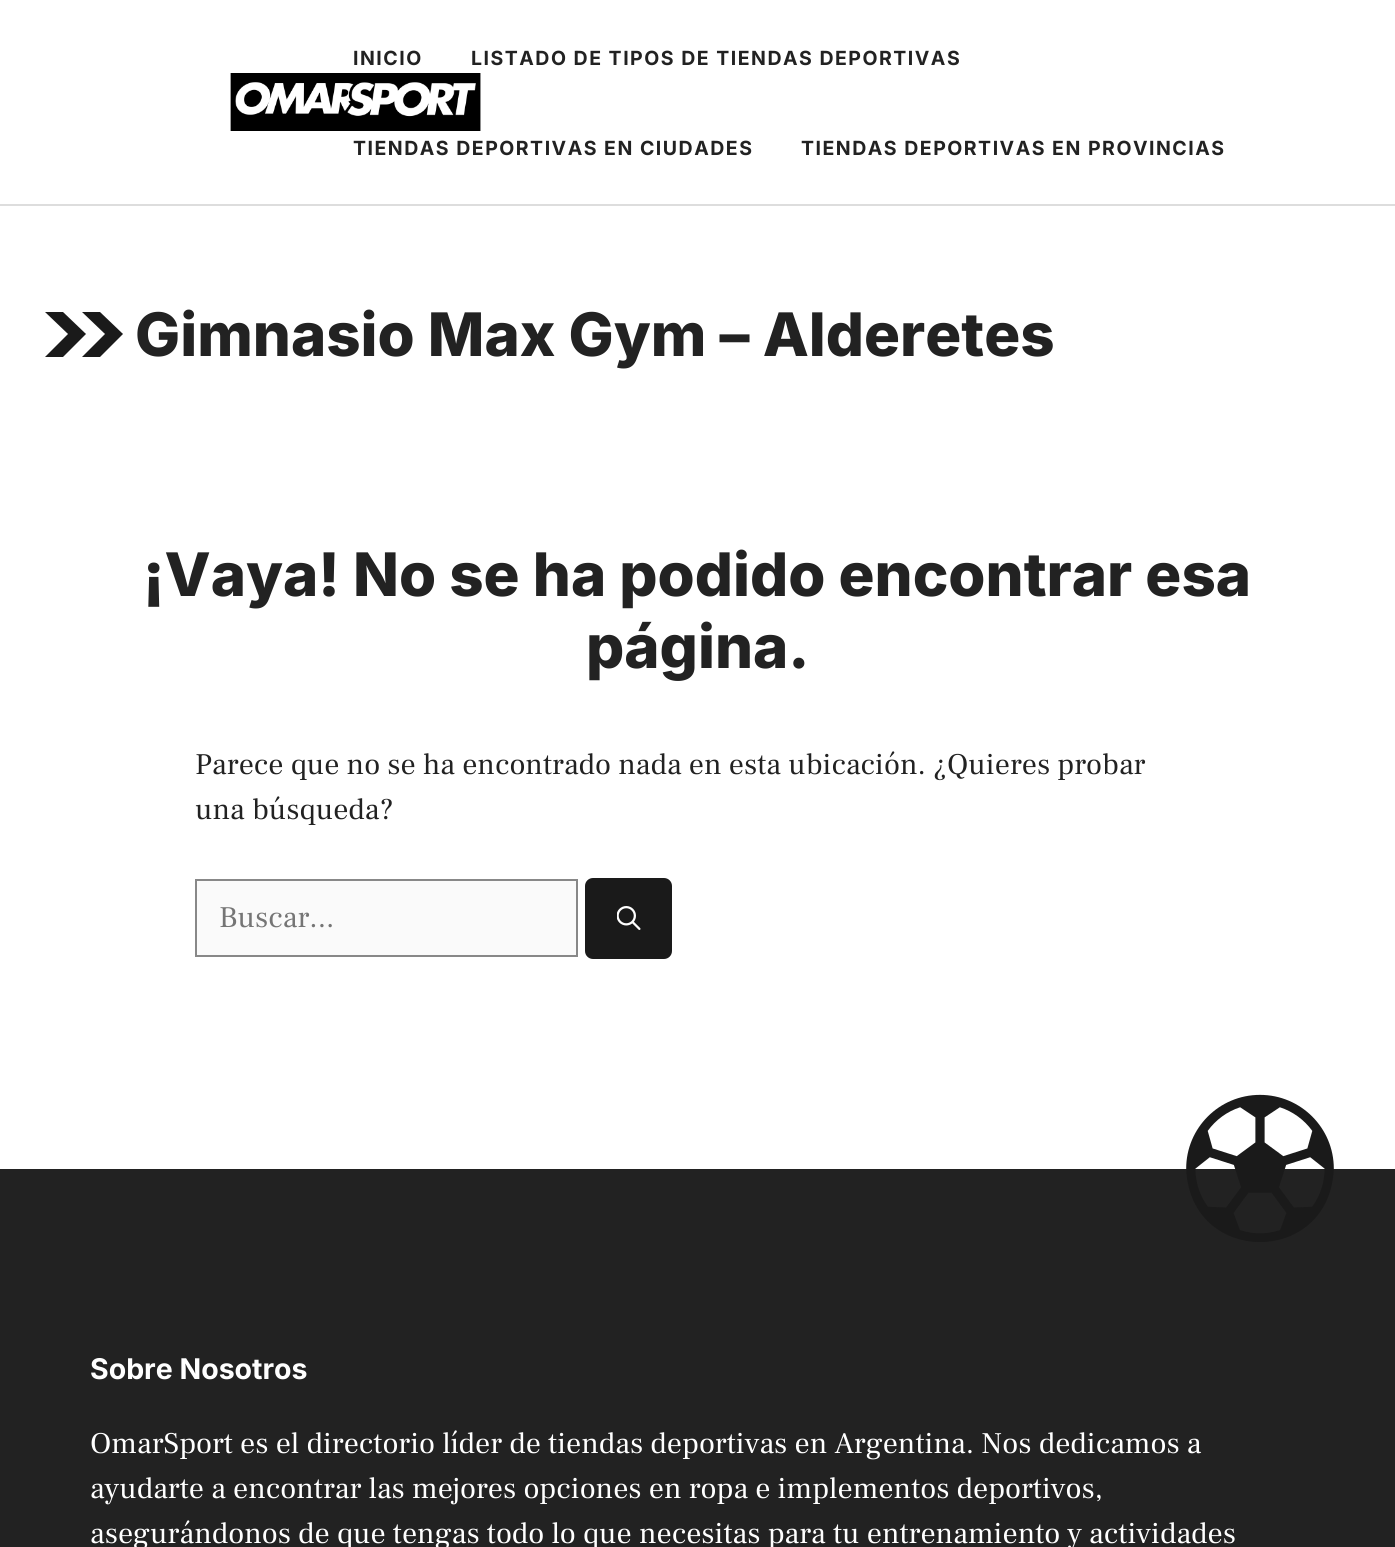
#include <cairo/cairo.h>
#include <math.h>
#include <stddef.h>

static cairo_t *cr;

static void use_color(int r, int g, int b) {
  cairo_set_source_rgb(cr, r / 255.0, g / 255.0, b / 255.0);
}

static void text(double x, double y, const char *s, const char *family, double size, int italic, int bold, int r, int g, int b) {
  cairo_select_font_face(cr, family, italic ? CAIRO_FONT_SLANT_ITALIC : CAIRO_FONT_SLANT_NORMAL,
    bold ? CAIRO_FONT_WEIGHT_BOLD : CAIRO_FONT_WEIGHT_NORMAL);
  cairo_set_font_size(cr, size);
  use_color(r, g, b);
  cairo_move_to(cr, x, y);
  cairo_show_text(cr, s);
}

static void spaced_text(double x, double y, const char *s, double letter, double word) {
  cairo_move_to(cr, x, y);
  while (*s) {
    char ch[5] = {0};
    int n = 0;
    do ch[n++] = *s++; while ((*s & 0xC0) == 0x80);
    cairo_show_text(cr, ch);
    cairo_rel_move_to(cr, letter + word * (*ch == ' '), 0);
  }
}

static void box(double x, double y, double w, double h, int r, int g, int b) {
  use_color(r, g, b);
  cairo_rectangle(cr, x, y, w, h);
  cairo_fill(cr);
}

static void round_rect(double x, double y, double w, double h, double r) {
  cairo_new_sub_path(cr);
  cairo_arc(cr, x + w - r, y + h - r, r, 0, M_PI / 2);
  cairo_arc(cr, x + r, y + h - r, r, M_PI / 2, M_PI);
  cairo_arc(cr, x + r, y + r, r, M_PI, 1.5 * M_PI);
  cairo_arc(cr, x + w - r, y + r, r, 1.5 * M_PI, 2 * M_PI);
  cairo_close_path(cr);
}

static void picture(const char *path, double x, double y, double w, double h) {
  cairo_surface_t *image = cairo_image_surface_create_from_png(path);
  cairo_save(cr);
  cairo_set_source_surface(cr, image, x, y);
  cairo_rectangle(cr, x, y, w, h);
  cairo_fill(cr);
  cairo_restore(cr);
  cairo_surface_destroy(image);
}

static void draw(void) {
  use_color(255, 255, 255);
  cairo_paint(cr);
  box(0, 204, 1395, 2, 221, 221, 221);
  picture("img_01.png", 230, 73, 251, 58);
  use_color(26, 26, 26);
  cairo_new_path(cr);
  cairo_move_to(cr, 105, 334);
  cairo_line_to(cr, 82, 357);
  cairo_line_to(cr, 100, 357);
  cairo_line_to(cr, 123, 334);
  cairo_line_to(cr, 100, 312);
  cairo_line_to(cr, 82, 312);
  cairo_close_path(cr);
  cairo_fill(cr);
  cairo_new_path(cr);
  cairo_move_to(cr, 68, 334);
  cairo_line_to(cr, 45, 357);
  cairo_line_to(cr, 63, 357);
  cairo_line_to(cr, 86, 334);
  cairo_line_to(cr, 63, 312);
  cairo_line_to(cr, 45, 312);
  cairo_close_path(cr);
  cairo_fill(cr);
  use_color(250, 250, 250);
  cairo_rectangle(cr, 196, 880, 381, 76);
  cairo_fill_preserve(cr);
  use_color(136, 136, 136);
  cairo_stroke(cr);
  use_color(26, 26, 26);
  round_rect(585, 878, 87, 81, 8);
  cairo_fill(cr);
  picture("img_02.png", 617, 906, 24, 24);
  box(0, 1169, 1395, 378, 34, 34, 34);
  picture("img_03.png", 1186, 1094, 148, 148);
  cairo_select_font_face(cr, "Inter", CAIRO_FONT_SLANT_NORMAL, CAIRO_FONT_WEIGHT_BOLD);
  cairo_set_font_size(cr, 19.5);
  spaced_text(353, 65, "INICIO", 1.5, 0);
  spaced_text(471, 65, "LISTADO DE TIPOS DE TIENDAS DEPORTIVAS", 1.5, 0);
  spaced_text(353, 155, "TIENDAS DEPORTIVAS EN CIUDADES", 1.5, 0);
  spaced_text(801, 155, "TIENDAS DEPORTIVAS EN PROVINCIAS", 1.5, 0);
  text(135, 356, "Gimnasio Max Gym – Alderetes", "Inter ExtraBold", 60, 0, 0, 34, 34, 34);
  text(143, 596, "¡Vaya! No se ha podido encontrar esa", "Inter ExtraBold", 60, 0, 0, 34, 34, 34);
  text(586, 668, "página.", "Inter ExtraBold", 60, 0, 0, 34, 34, 34);
  text(195, 774, "Parece que no se ha encontrado nada en esta ubicación. ¿Quieres probar", "Frank Ruhl Libre", 30, 0, 0, 34, 34, 34);
  text(195, 819, "una búsqueda?", "Frank Ruhl Libre", 30, 0, 0, 34, 34, 34);
  text(219, 927, "Buscar...", "Frank Ruhl Libre", 30, 0, 0, 117, 117, 117);
  text(90, 1379, "Sobre Nosotros", "Inter", 28.5, 0, 1, 255, 255, 255);
  text(90, 1453, "OmarSport es el directorio líder de tiendas deportivas en Argentina. Nos dedicamos a", "Frank Ruhl Libre", 30, 0, 0, 255, 255, 255);
  text(90, 1498, "ayudarte a encontrar las mejores opciones en ropa e implementos deportivos,", "Frank Ruhl Libre", 30, 0, 0, 255, 255, 255);
  text(90, 1543, "asegurándonos de que tengas todo lo que necesitas para tu entrenamiento y actividades", "Frank Ruhl Libre", 30, 0, 0, 255, 255, 255);
}

int main(void) {
  cairo_surface_t *surface = cairo_image_surface_create(CAIRO_FORMAT_RGB24, 1395, 1547);
  cr = cairo_create(surface);
  cairo_font_options_t *options = cairo_font_options_create();
  cairo_font_options_set_hint_metrics(options, CAIRO_HINT_METRICS_OFF);
  cairo_font_options_set_hint_style(options, CAIRO_HINT_STYLE_NONE);
  cairo_set_font_options(cr, options);
  cairo_set_miter_limit(cr, 4);
  draw();
  cairo_surface_write_to_png(surface, "out.png");
  cairo_font_options_destroy(options);
  cairo_destroy(cr);
  cairo_surface_destroy(surface);
  return 0;
}
